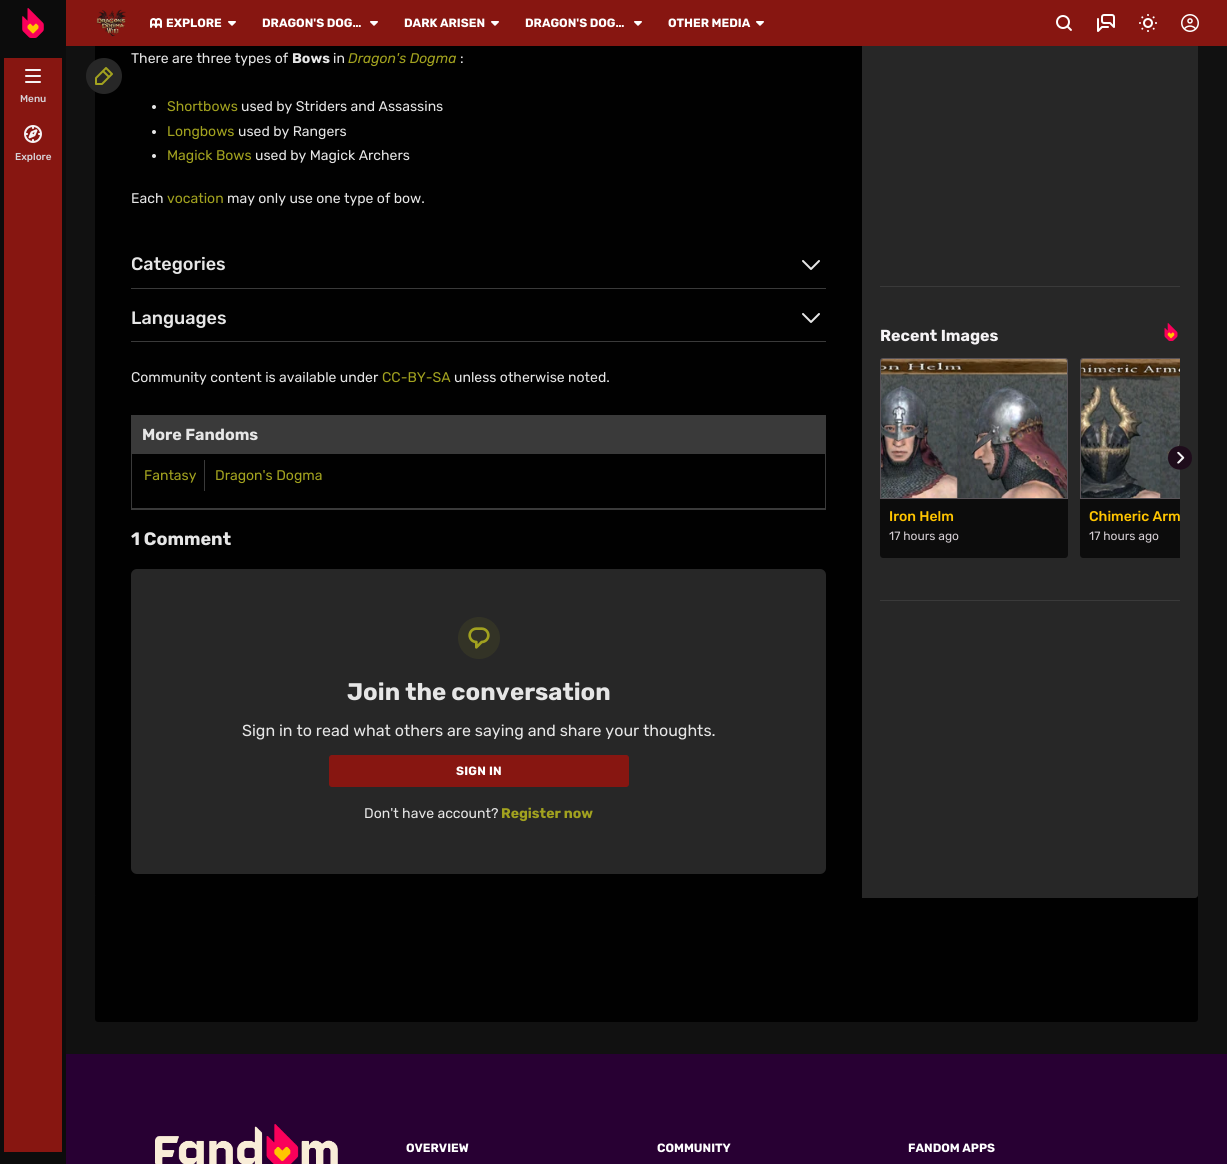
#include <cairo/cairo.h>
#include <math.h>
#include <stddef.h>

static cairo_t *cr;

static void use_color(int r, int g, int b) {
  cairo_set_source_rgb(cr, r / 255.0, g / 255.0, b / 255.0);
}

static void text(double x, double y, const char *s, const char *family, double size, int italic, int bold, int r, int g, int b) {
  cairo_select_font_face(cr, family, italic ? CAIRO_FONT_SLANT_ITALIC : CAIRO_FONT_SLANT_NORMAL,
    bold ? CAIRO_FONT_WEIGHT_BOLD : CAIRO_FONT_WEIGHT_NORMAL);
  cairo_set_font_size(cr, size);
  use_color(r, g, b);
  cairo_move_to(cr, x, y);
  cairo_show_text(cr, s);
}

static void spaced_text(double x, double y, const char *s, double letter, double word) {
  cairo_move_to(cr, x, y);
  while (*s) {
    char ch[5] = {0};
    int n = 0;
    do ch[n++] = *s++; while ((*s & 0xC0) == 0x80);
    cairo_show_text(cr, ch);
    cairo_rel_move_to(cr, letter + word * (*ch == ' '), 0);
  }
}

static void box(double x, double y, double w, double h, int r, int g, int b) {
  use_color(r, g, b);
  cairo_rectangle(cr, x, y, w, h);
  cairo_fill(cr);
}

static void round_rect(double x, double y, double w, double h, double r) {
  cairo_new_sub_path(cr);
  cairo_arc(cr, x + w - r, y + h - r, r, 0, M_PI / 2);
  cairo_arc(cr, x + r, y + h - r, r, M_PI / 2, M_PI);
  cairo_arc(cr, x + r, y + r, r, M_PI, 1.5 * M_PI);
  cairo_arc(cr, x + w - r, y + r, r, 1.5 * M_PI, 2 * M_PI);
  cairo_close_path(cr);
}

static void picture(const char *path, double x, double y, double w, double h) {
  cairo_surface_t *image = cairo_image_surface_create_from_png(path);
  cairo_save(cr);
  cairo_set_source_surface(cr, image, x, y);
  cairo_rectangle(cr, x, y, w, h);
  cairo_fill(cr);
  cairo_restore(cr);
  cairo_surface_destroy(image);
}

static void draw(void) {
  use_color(17, 17, 17);
  cairo_paint(cr);
  use_color(1, 1, 1);
  cairo_new_path(cr);
  cairo_move_to(cr, 95, 896);
  cairo_line_to(cr, 1198, 896);
  cairo_line_to(cr, 1198, 1019);
  cairo_curve_to(cr, 1198, 1020.5, 1196.5, 1022, 1195, 1022);
  cairo_line_to(cr, 98, 1022);
  cairo_curve_to(cr, 96.5, 1022, 95, 1020.5, 95, 1019);
  cairo_close_path(cr);
  cairo_fill(cr);
  cairo_new_path(cr);
  cairo_move_to(cr, 98, -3);
  cairo_line_to(cr, 862, -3);
  cairo_line_to(cr, 862, 898);
  cairo_line_to(cr, 98, 898);
  cairo_curve_to(cr, 96.5, 898, 95, 896.5, 95, 895);
  cairo_line_to(cr, 95, 0);
  cairo_curve_to(cr, 95, -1.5, 96.5, -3, 98, -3);
  cairo_close_path(cr);
  cairo_fill(cr);
  use_color(39, 39, 39);
  cairo_new_path(cr);
  cairo_move_to(cr, 862, -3);
  cairo_line_to(cr, 1195, -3);
  cairo_curve_to(cr, 1196.5, -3, 1198, -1.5, 1198, 0);
  cairo_line_to(cr, 1198, 895);
  cairo_curve_to(cr, 1198, 896.5, 1196.5, 898, 1195, 898);
  cairo_line_to(cr, 862, 898);
  cairo_close_path(cr);
  cairo_fill(cr);
  box(66, 0, 1161, 46, 135, 22, 17);
  box(0, 0, 66, 1164, 12, 12, 12);
  picture("img_01.png", 22, 8, 22, 30);
  picture("img_02.png", 96, 9, 30, 28);
  picture("img_03.png", 150, 18, 12, 10);
  picture("img_04.png", 228, 21, 8, 5);
  picture("img_04.png", 370, 21, 8, 5);
  picture("img_04.png", 491, 21, 8, 5);
  picture("img_04.png", 634, 21, 8, 5);
  picture("img_04.png", 756, 21, 8, 5);
  picture("img_05.png", 1056, 15, 16, 16);
  picture("img_06.png", 1097, 14, 18, 18);
  picture("img_07.png", 1139, 14, 18, 18);
  picture("img_08.png", 1181, 14, 18, 18);
  box(4, 58, 58, 1094, 135, 22, 17);
  picture("img_09.png", 25, 69, 16, 14);
  picture("img_10.png", 24, 125, 18, 18);
  use_color(39, 39, 39);
  cairo_arc(cr, 104, 76, 18, 0, 2 * M_PI);
  cairo_fill(cr);
  picture("img_11.png", 95, 67, 18, 18);
  use_color(230, 230, 230);
  cairo_arc(cr, 154, 107, 2, 0, 2 * M_PI);
  cairo_fill(cr);
  cairo_arc(cr, 154, 132, 2, 0, 2 * M_PI);
  cairo_fill(cr);
  cairo_arc(cr, 154, 156, 2, 0, 2 * M_PI);
  cairo_fill(cr);
  box(131, 288, 695, 1, 58, 58, 58);
  picture("img_12.png", 802, 260, 18, 10);
  box(131, 341, 695, 1, 58, 58, 58);
  picture("img_12.png", 802, 313, 18, 10);
  cairo_rectangle(cr, 131.5, 415.5, 694, 93);
  cairo_set_line_width(cr, 1);
  cairo_stroke(cr);
  box(132, 416, 693, 38, 58, 58, 58);
  box(204, 460, 1, 31, 58, 58, 58);
  box(131, 509, 695, 1, 58, 58, 58);
  use_color(39, 39, 39);
  round_rect(131, 569, 695, 305, 6);
  cairo_fill(cr);
  use_color(51, 51, 38);
  cairo_arc(cr, 479, 638, 21, 0, 2 * M_PI);
  cairo_fill(cr);
  picture("img_13.png", 468, 627, 22, 22);
  use_color(135, 22, 17);
  round_rect(329.5, 755.5, 299, 31, 2.5);
  cairo_fill_preserve(cr);
  cairo_stroke(cr);
  box(880, 286, 300, 1, 58, 58, 58);
  box(880, 600, 300, 1, 58, 58, 58);
  picture("img_14.png", 1164, 323, 14, 18);
  cairo_save(cr);
  cairo_rectangle(cr, 880, 358, 300, 200);
  cairo_clip(cr);
  cairo_new_path(cr);
  cairo_move_to(cr, 1083, 358.5);
  cairo_line_to(cr, 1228, 358.5);
  cairo_curve_to(cr, 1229.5, 358.5, 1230.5, 359.5, 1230.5, 361);
  cairo_line_to(cr, 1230.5, 498.5);
  cairo_line_to(cr, 1080.5, 498.5);
  cairo_line_to(cr, 1080.5, 361);
  cairo_curve_to(cr, 1080.5, 359.5, 1081.5, 358.5, 1083, 358.5);
  cairo_close_path(cr);
  use_color(89, 83, 88);
  cairo_stroke(cr);
  cairo_restore(cr);
  picture("img_17.png", 1081, 359, 99, 139);
  use_color(30, 12, 27);
  cairo_new_path(cr);
  cairo_move_to(cr, 1168, 458);
  cairo_curve_to(cr, 1168, 442, 1192, 442, 1192, 458);
  cairo_curve_to(cr, 1192, 473.5, 1168, 473.5, 1168, 458);
  cairo_close_path(cr);
  cairo_fill(cr);
  picture("img_15.png", 1177, 451, 8, 13);
  cairo_new_path(cr);
  cairo_move_to(cr, 883, 358.5);
  cairo_line_to(cr, 1065, 358.5);
  cairo_curve_to(cr, 1066.5, 358.5, 1067.5, 359.5, 1067.5, 361);
  cairo_line_to(cr, 1067.5, 498.5);
  cairo_line_to(cr, 880.5, 498.5);
  cairo_line_to(cr, 880.5, 361);
  cairo_curve_to(cr, 880.5, 359.5, 881.5, 358.5, 883, 358.5);
  cairo_close_path(cr);
  use_color(89, 83, 88);
  cairo_stroke(cr);
  picture("img_16.png", 881, 359, 186, 139);
  use_color(12, 12, 12);
  cairo_new_path(cr);
  cairo_move_to(cr, 880, 499);
  cairo_line_to(cr, 1068, 499);
  cairo_line_to(cr, 1068, 555);
  cairo_curve_to(cr, 1068, 556.5, 1066.5, 558, 1065, 558);
  cairo_line_to(cr, 883, 558);
  cairo_curve_to(cr, 881.5, 558, 880, 556.5, 880, 555);
  cairo_close_path(cr);
  cairo_fill(cr);
  cairo_new_path(cr);
  cairo_move_to(cr, 1080, 499);
  cairo_line_to(cr, 1180, 499);
  cairo_line_to(cr, 1180, 558);
  cairo_line_to(cr, 1083, 558);
  cairo_curve_to(cr, 1081.5, 558, 1080, 556.5, 1080, 555);
  cairo_close_path(cr);
  cairo_fill(cr);
  box(66, 1054, 1161, 110, 40, 0, 51);
  picture("img_18.png", 155, 1124, 183, 40);
  text(166, 27, "EXPLORE", "Rubik", 12, 0, 1, 255, 255, 255);
  text(262, 27, "DRAGON'S DOG…", "Rubik", 12, 0, 1, 255, 255, 255);
  text(404, 27, "DARK ARISEN", "Rubik", 12, 0, 1, 255, 255, 255);
  text(525, 27, "DRAGON'S DOG…", "Rubik", 12, 0, 1, 255, 255, 255);
  text(668, 27, "OTHER MEDIA", "Rubik", 12, 0, 1, 255, 255, 255);
  text(20, 102, "Menu", "Rubik Medium", 10, 0, 0, 214, 208, 213);
  text(15, 160, "Explore", "Rubik Medium", 10, 0, 0, 214, 208, 213);
  text(131, 63, "There are three types of", "Rubik", 14, 0, 0, 230, 230, 230);
  text(292, 63, "Bows", "Rubik", 14, 0, 1, 230, 230, 230);
  text(333, 63, "in", "Rubik", 14, 0, 0, 230, 230, 230);
  text(348, 63, "Dragon's Dogma", "Rubik", 14, 1, 0, 162, 162, 31);
  text(460, 63, ":", "Rubik", 14, 0, 0, 230, 230, 230);
  text(167, 111, "Shortbows", "Rubik", 14, 0, 0, 162, 162, 31);
  text(241, 111, "used by Striders and Assassins", "Rubik", 14, 0, 0, 230, 230, 230);
  text(167, 136, "Longbows", "Rubik", 14, 0, 0, 162, 162, 31);
  text(238, 136, "used by Rangers", "Rubik", 14, 0, 0, 230, 230, 230);
  text(167, 160, "Magick Bows", "Rubik", 14, 0, 0, 162, 162, 31);
  text(255, 160, "used by Magick Archers", "Rubik", 14, 0, 0, 230, 230, 230);
  text(131, 203, "Each", "Rubik", 14, 0, 0, 230, 230, 230);
  text(167, 203, "vocation", "Rubik", 14, 0, 0, 162, 162, 31);
  text(227, 203, "may only use one type of bow.", "Rubik", 14, 0, 0, 230, 230, 230);
  text(131, 270, "Categories", "Rubik Medium", 18, 0, 0, 230, 230, 230);
  text(131, 324, "Languages", "Rubik Medium", 18, 0, 0, 230, 230, 230);
  text(131, 382, "Community content is available under", "Rubik", 14, 0, 0, 230, 230, 230);
  text(382, 382, "CC-BY-SA", "Rubik", 14, 0, 0, 162, 162, 31);
  text(454, 382, "unless otherwise noted.", "Rubik", 14, 0, 0, 230, 230, 230);
  text(142, 440, "More Fandoms", "Rubik", 16, 0, 1, 230, 230, 230);
  text(144, 480, "Fantasy", "Rubik", 14, 0, 0, 162, 162, 31);
  text(215, 480, "Dragon's Dogma", "Rubik", 14, 0, 0, 162, 162, 31);
  text(131, 545, "1 Comment", "Rubik", 18, 0, 1, 230, 230, 230);
  text(347, 700, "Join the conversation", "Rubik", 24, 0, 1, 230, 230, 230);
  text(242, 736, "Sign in to read what others are saying and share your thoughts.", "Rubik", 16, 0, 0, 230, 230, 230);
  cairo_select_font_face(cr, "Rubik", CAIRO_FONT_SLANT_NORMAL, CAIRO_FONT_WEIGHT_BOLD);
  cairo_set_font_size(cr, 12);
  use_color(255, 255, 255);
  spaced_text(456, 775, "SIGN IN", 0.25, 0);
  text(364, 818, "Don't have account?", "Rubik", 14, 0, 0, 230, 230, 230);
  text(501, 818, "Register now", "Rubik", 14, 0, 1, 162, 162, 31);
  text(880, 341, "Recent Images", "Rubik", 16, 0, 1, 245, 243, 245);
  text(889, 521, "Iron Helm", "Rubik Medium", 14, 0, 0, 255, 197, 0);
  text(889, 540, "17 hours ago", "Rubik", 12, 0, 0, 214, 208, 213);
  text(1089, 521, "Chimeric Arm", "Rubik Medium", 14, 0, 0, 255, 197, 0);
  text(1089, 540, "17 hours ago", "Rubik", 12, 0, 0, 214, 208, 213);
  text(406, 1152, "OVERVIEW", "Rubik", 12, 0, 1, 255, 255, 255);
  text(657, 1152, "COMMUNITY", "Rubik", 12, 0, 1, 255, 255, 255);
  text(908, 1152, "FANDOM APPS", "Rubik", 12, 0, 1, 255, 255, 255);
}

int main(void) {
  cairo_surface_t *surface = cairo_image_surface_create(CAIRO_FORMAT_RGB24, 1227, 1164);
  cr = cairo_create(surface);
  cairo_font_options_t *options = cairo_font_options_create();
  cairo_font_options_set_hint_metrics(options, CAIRO_HINT_METRICS_OFF);
  cairo_font_options_set_hint_style(options, CAIRO_HINT_STYLE_NONE);
  cairo_set_font_options(cr, options);
  cairo_set_miter_limit(cr, 4);
  draw();
  cairo_surface_write_to_png(surface, "out.png");
  cairo_font_options_destroy(options);
  cairo_destroy(cr);
  cairo_surface_destroy(surface);
  return 0;
}
